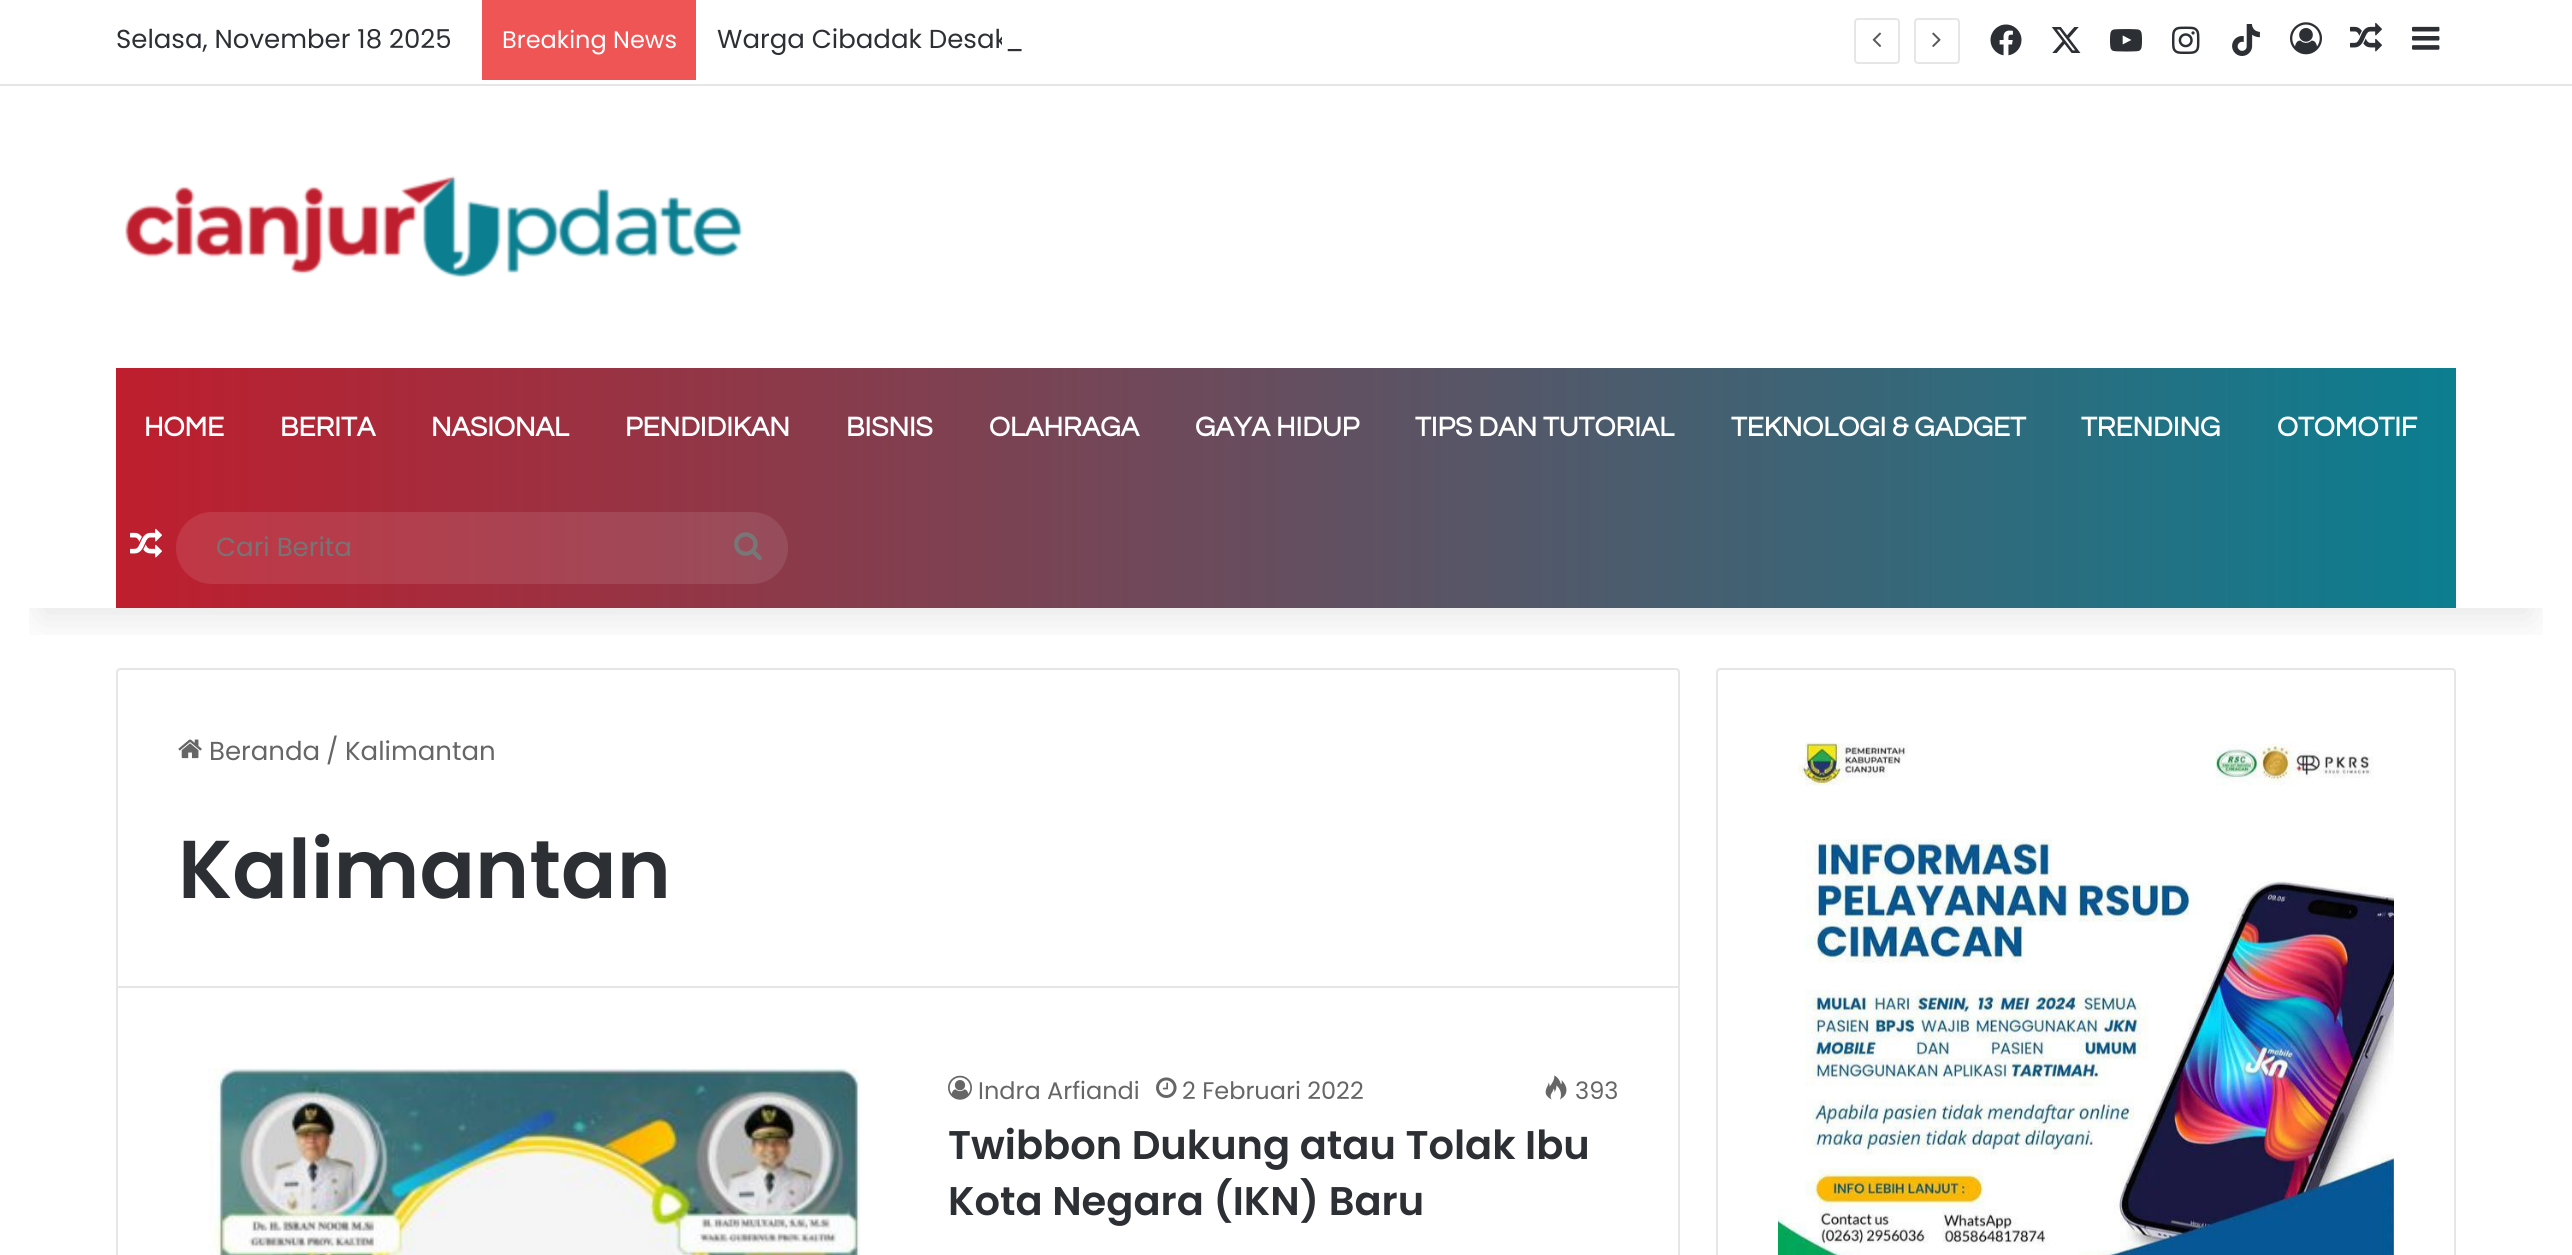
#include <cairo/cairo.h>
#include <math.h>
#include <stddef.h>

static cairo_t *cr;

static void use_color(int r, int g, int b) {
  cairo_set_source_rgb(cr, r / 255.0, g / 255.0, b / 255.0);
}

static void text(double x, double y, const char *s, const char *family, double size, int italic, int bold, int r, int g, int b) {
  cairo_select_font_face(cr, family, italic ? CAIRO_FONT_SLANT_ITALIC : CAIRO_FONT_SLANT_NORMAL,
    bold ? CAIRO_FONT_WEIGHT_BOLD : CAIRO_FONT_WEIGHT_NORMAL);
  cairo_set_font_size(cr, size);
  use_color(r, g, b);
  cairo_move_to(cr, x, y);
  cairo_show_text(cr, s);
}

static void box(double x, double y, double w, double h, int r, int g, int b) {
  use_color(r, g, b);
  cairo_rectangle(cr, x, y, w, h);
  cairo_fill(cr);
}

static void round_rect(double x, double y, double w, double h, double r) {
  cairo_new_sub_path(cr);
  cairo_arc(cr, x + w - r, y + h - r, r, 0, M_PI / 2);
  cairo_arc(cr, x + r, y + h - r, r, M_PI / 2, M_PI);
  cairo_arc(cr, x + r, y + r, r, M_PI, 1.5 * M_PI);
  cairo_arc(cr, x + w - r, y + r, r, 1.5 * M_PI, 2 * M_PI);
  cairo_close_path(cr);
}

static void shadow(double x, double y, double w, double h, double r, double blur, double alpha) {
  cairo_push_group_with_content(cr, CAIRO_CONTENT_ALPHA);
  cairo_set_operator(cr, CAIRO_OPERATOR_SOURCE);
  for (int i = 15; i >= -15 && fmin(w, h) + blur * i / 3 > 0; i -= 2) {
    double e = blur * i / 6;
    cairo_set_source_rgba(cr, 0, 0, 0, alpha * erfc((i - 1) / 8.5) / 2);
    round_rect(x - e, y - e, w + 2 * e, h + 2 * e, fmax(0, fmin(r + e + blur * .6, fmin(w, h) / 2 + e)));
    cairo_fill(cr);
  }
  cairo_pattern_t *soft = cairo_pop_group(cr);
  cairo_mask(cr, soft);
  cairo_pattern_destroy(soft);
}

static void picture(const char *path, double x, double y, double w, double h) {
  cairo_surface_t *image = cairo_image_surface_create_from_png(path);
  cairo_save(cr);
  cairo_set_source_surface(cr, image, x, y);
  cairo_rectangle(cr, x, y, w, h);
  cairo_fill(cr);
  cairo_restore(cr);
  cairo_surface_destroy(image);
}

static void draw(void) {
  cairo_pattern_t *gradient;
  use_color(255, 255, 255);
  cairo_paint(cr);
  cairo_new_path(cr);
  cairo_move_to(cr, 120, 669);
  cairo_line_to(cr, 1676, 669);
  cairo_curve_to(cr, 1677.5, 669, 1679, 670.5, 1679, 672);
  cairo_line_to(cr, 1679, 987);
  cairo_line_to(cr, 117, 987);
  cairo_line_to(cr, 117, 672);
  cairo_curve_to(cr, 117, 670.5, 118.5, 669, 120, 669);
  cairo_close_path(cr);
  use_color(230, 230, 230);
  cairo_stroke(cr);
  round_rect(1717, 669, 738, 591, 3);
  cairo_stroke(cr);
  cairo_save(cr);
  cairo_rectangle(cr, 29, 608, 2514, 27);
  cairo_clip(cr);
  use_color(0, 0, 0);
  shadow(40, 90, 2492, 528, 0, 20, 0.1);
  cairo_restore(cr);
  box(0, 84, 2572, 2, 230, 230, 230);
  box(482, 0, 214, 80, 240, 85, 85);
  round_rect(1855, 19, 44, 44, 3);
  use_color(230, 230, 230);
  cairo_stroke(cr);
  picture("img_01.png", 1872, 32, 10, 15);
  round_rect(1915, 19, 44, 44, 3);
  cairo_stroke(cr);
  picture("img_02.png", 1932, 32, 9, 15);
  picture("img_03.png", 1990, 24, 32, 32);
  picture("img_04.png", 2051, 27, 30, 26);
  picture("img_05.png", 2110, 29, 32, 23);
  picture("img_06.png", 2172, 26, 28, 28);
  picture("img_07.png", 2232, 24, 28, 32);
  picture("img_08.png", 2290, 22, 32, 33);
  picture("img_09.png", 2350, 22, 32, 30);
  picture("img_10.png", 2412, 26, 28, 24);
  picture("img_11.png", 125, 175, 618, 103);
  gradient = cairo_pattern_create_linear(116, 488, 2456, 488);
  cairo_pattern_add_color_stop_rgba(gradient, 0, 0.749, 0.118, 0.18, 1);
  cairo_pattern_add_color_stop_rgba(gradient, 1, 0.043, 0.494, 0.565, 1);
  cairo_set_source(cr, gradient);
  cairo_pattern_destroy(gradient);
  cairo_rectangle(cr, 116, 368, 2340, 240);
  cairo_fill(cr);
  picture("img_12.png", 130, 528, 32, 30);
  cairo_set_source_rgba(cr, 1, 1, 1, 0.1);
  round_rect(176, 512, 612, 72, 36);
  cairo_fill(cr);
  picture("img_13.png", 734, 532, 28, 28);
  picture("img_14.png", 178, 739, 24, 20);
  box(1678, 988, 2, 267, 230, 230, 230);
  box(116, 988, 2, 267, 230, 230, 230);
  picture("img_15.png", 208, 1068, 652, 187);
  picture("img_16.png", 948, 1075, 24, 25);
  picture("img_17.png", 1156, 1077, 21, 21);
  picture("img_18.png", 1545, 1075, 22, 25);
  picture("img_19.png", 1778, 742, 616, 513);
  text(116, 48, "Selasa, November 18 2025", "Poppins", 26, 0, 0, 44, 47, 52);
  text(502, 48, "Breaking News", "Poppins", 24, 0, 0, 255, 255, 255);
  text(717, 48, "Warga Cibadak Desak", "Poppins", 26, 0, 0, 44, 47, 52);
  box(1002, 33, 6, 15, 255, 255, 255);
  text(1005, 48, "_", "Poppins", 26, 0, 0, 44, 47, 52);
  text(144, 436, "HOME", "Questrial", 28, 0, 1, 255, 255, 255);
  text(280, 436, "BERITA", "Questrial", 28, 0, 1, 255, 255, 255);
  text(431, 436, "NASIONAL", "Questrial", 28, 0, 1, 255, 255, 255);
  text(625, 436, "PENDIDIKAN", "Questrial", 28, 0, 1, 255, 255, 255);
  text(846, 436, "BISNIS", "Questrial", 28, 0, 1, 255, 255, 255);
  text(989, 436, "OLAHRAGA", "Questrial", 28, 0, 1, 255, 255, 255);
  text(1195, 436, "GAYA HIDUP", "Questrial", 28, 0, 1, 255, 255, 255);
  text(1415, 436, "TIPS DAN TUTORIAL", "Questrial", 28, 0, 1, 255, 255, 255);
  text(1731, 436, "TEKNOLOGI & GADGET", "Questrial", 28, 0, 1, 255, 255, 255);
  text(2081, 436, "TRENDING", "Questrial", 28, 0, 1, 255, 255, 255);
  text(2277, 436, "OTOMOTIF", "Questrial", 28, 0, 1, 255, 255, 255);
  text(216, 556, "Cari Berita", "Poppins", 26, 0, 0, 117, 117, 117);
  text(209, 760, "Beranda", "Poppins", 26, 0, 0, 102, 102, 102);
  text(326, 760, "/", "Poppins", 26, 0, 0, 102, 102, 102);
  text(345, 760, "Kalimantan", "Poppins", 26, 0, 0, 102, 102, 102);
  text(178, 898, "Kalimantan", "Poppins SemiBold", 82, 0, 0, 44, 47, 52);
  text(978, 1099, "Indra Arfiandi", "Poppins", 24, 0, 0, 102, 102, 102);
  text(1182, 1099, "2 Februari 2022", "Poppins", 24, 0, 0, 102, 102, 102);
  text(1575, 1099, "393", "Poppins", 24, 0, 0, 102, 102, 102);
  text(948, 1159, "Twibbon Dukung atau Tolak Ibu", "Poppins SemiBold", 40, 0, 0, 44, 47, 52);
  text(948, 1215, "Kota Negara (IKN) Baru", "Poppins SemiBold", 40, 0, 0, 44, 47, 52);
}

int main(void) {
  cairo_surface_t *surface = cairo_image_surface_create(CAIRO_FORMAT_RGB24, 2572, 1255);
  cr = cairo_create(surface);
  cairo_font_options_t *options = cairo_font_options_create();
  cairo_font_options_set_hint_metrics(options, CAIRO_HINT_METRICS_OFF);
  cairo_font_options_set_hint_style(options, CAIRO_HINT_STYLE_NONE);
  cairo_set_font_options(cr, options);
  cairo_set_miter_limit(cr, 4);
  draw();
  cairo_surface_write_to_png(surface, "out.png");
  cairo_font_options_destroy(options);
  cairo_destroy(cr);
  cairo_surface_destroy(surface);
  return 0;
}
